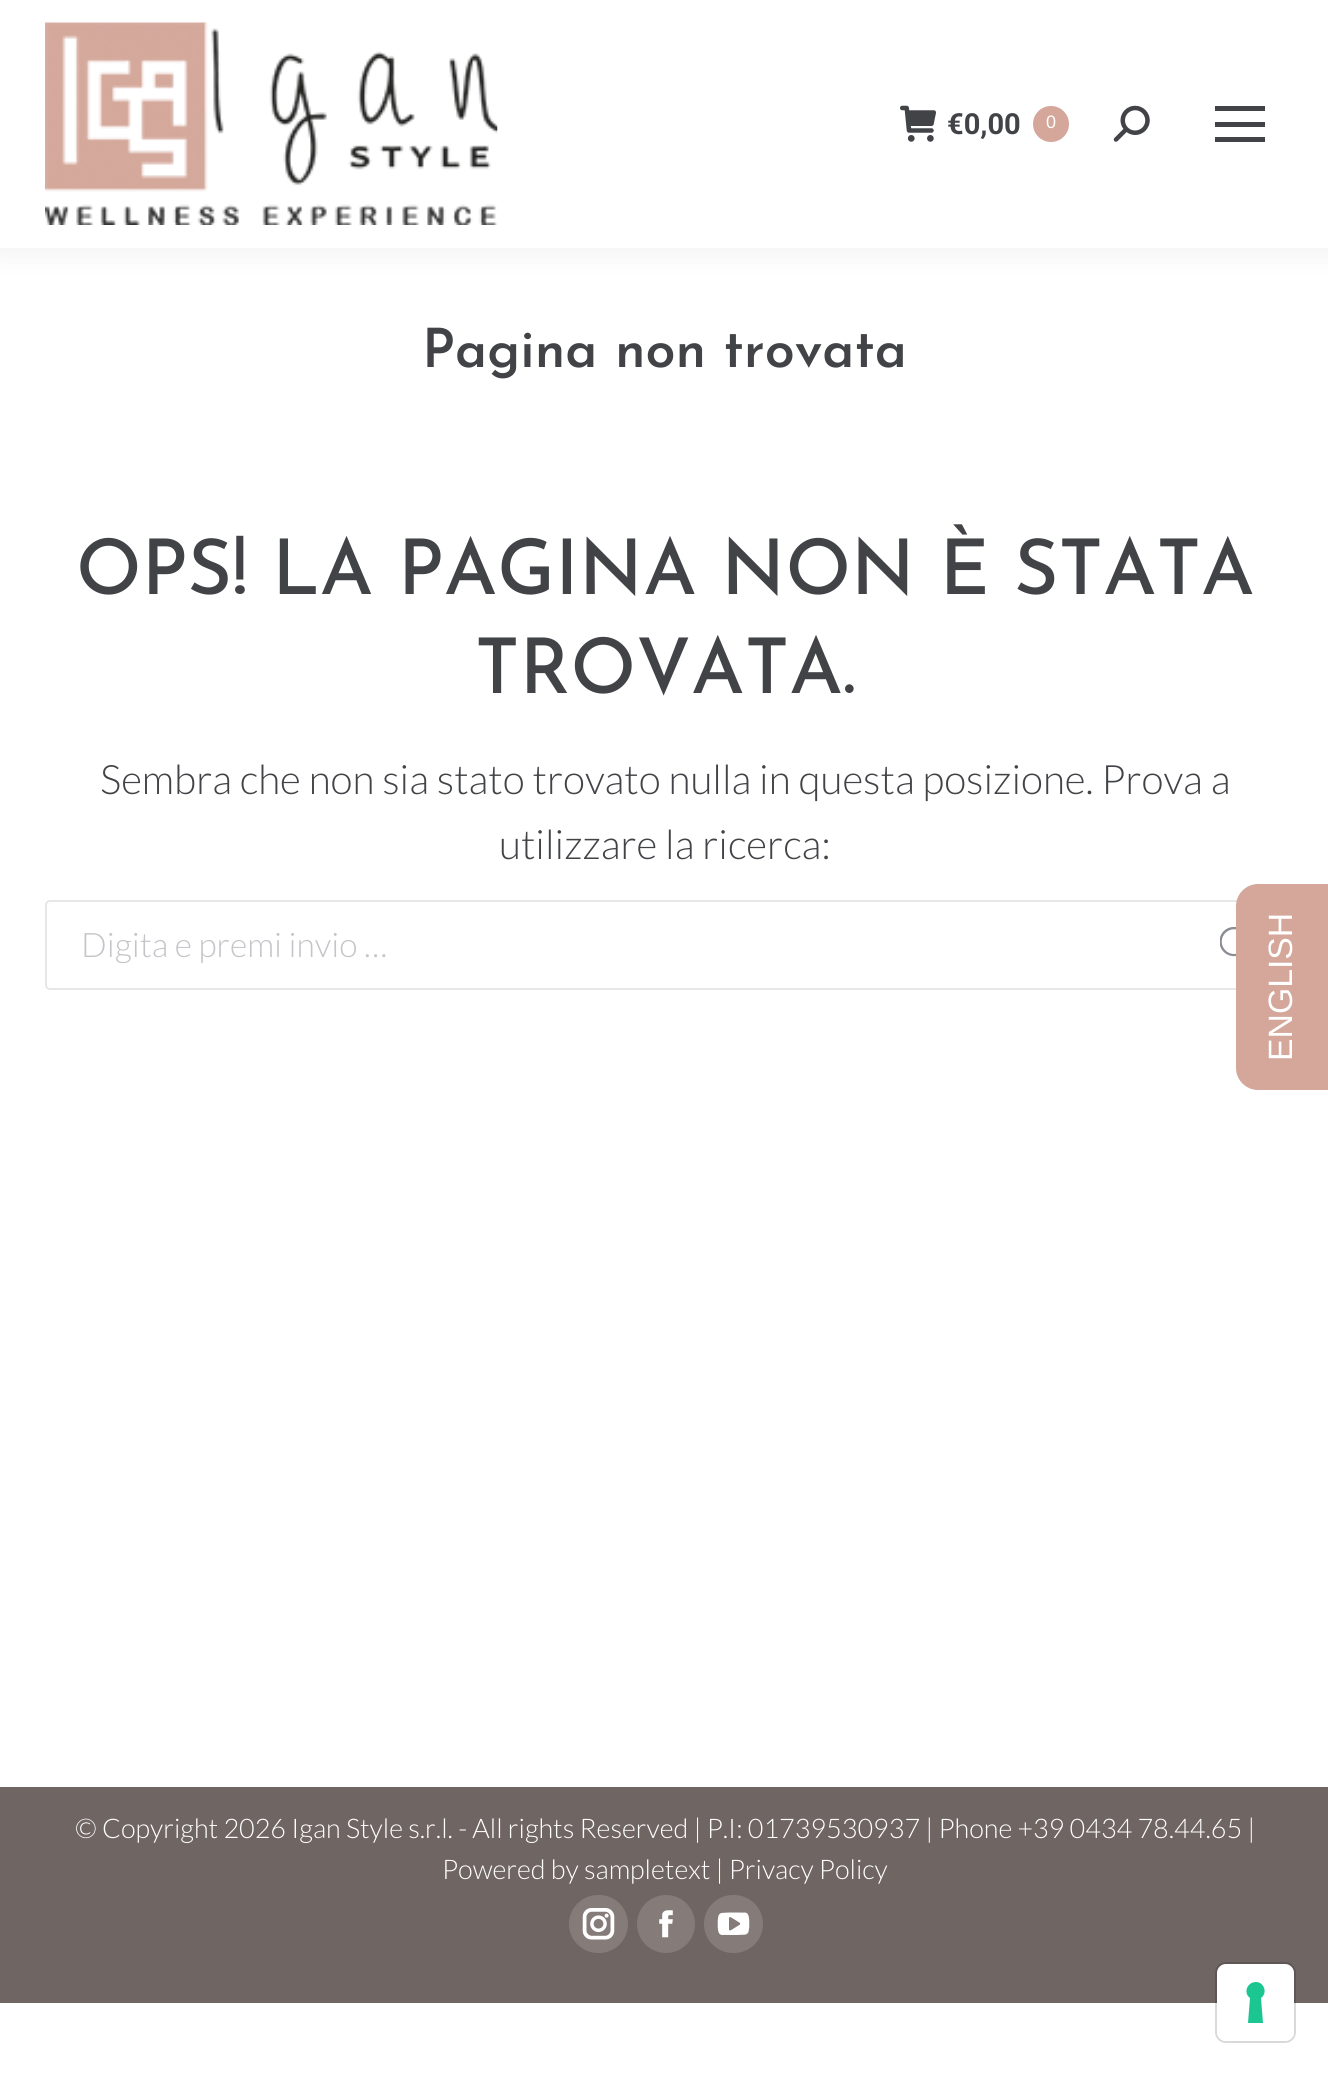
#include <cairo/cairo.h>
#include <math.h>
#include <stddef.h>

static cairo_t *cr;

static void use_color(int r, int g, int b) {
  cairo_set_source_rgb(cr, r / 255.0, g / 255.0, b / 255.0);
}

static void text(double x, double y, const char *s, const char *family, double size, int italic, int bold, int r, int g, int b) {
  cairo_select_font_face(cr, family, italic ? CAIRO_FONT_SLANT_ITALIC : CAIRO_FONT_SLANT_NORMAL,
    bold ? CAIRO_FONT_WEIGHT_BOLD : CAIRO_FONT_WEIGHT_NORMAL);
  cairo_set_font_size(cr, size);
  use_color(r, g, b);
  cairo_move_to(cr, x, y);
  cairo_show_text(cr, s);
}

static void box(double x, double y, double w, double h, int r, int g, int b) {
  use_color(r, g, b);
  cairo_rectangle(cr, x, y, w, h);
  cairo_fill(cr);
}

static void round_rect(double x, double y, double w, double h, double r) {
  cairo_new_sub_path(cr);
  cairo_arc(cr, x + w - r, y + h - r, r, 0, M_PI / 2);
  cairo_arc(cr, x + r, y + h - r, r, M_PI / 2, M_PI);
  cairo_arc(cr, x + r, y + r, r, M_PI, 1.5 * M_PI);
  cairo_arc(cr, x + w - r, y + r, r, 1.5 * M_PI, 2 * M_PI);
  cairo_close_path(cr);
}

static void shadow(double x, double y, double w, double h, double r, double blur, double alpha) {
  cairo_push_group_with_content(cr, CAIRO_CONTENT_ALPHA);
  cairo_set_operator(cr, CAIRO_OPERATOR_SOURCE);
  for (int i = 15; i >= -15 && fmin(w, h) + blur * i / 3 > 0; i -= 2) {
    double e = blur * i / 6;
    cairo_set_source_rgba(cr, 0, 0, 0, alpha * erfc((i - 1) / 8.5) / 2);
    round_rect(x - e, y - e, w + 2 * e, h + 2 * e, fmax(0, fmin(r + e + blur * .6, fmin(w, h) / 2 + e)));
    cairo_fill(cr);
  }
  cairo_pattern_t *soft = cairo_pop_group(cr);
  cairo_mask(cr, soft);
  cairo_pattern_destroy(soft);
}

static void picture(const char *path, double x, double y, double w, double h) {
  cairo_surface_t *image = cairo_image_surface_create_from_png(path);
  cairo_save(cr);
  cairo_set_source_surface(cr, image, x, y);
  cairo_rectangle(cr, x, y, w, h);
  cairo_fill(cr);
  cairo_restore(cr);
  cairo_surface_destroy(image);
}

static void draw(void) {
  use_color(255, 255, 255);
  cairo_paint(cr);
  use_color(0, 0, 0);
  shadow(-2, -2, 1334, 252, 0, 17, 0.07);
  box(0, 0, 1328, 248, 255, 255, 255);
  picture("img_01.png", 45, 22, 453, 203);
  picture("img_02.png", 900, 105, 36, 37);
  use_color(212, 167, 154);
  cairo_arc(cr, 1051, 124, 18, 0, 2 * M_PI);
  cairo_fill(cr);
  picture("img_03.png", 1113, 105, 37, 37);
  box(1215, 106, 50, 5, 65, 67, 71);
  box(1215, 122, 50, 5, 65, 67, 71);
  box(1215, 137, 50, 5, 65, 67, 71);
  round_rect(46, 901, 1238, 88, 4);
  use_color(231, 231, 231);
  cairo_stroke(cr);
  picture("img_04.png", 1220, 927, 16, 30);
  box(0, 1787, 1328, 216, 111, 101, 99);
  use_color(133, 124, 122);
  round_rect(569, 1895, 59, 58, 29);
  cairo_fill(cr);
  picture("img_05.png", 582, 1908, 33, 32);
  cairo_arc(cr, 666, 1924, 29, 0, 2 * M_PI);
  cairo_fill(cr);
  picture("img_06.png", 659, 1910, 14, 28);
  round_rect(704, 1895, 59, 58, 29);
  cairo_fill(cr);
  picture("img_07.png", 717, 1912, 33, 23);
  use_color(212, 167, 154);
  cairo_new_path(cr);
  cairo_move_to(cr, 1236, 1068);
  cairo_line_to(cr, 1236, 906);
  cairo_curve_to(cr, 1236, 894, 1246, 884, 1258, 884);
  cairo_line_to(cr, 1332, 884);
  cairo_line_to(cr, 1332, 1090);
  cairo_line_to(cr, 1258, 1090);
  cairo_curve_to(cr, 1246, 1090, 1236, 1080, 1236, 1068);
  cairo_close_path(cr);
  cairo_fill(cr);
  round_rect(1216, 1963, 79, 79, 10);
  cairo_set_source_rgba(cr, 0, 0, 0, 0.15);
  cairo_stroke(cr);
  use_color(255, 255, 255);
  round_rect(1217, 1964, 77, 77, 9);
  cairo_fill(cr);
  use_color(28, 198, 145);
  cairo_set_fill_rule(cr, CAIRO_FILL_RULE_EVEN_ODD);
  cairo_new_path(cr);
  cairo_move_to(cr, 1256, 1982);
  cairo_curve_to(cr, 1264, 1982, 1268, 1993, 1261, 1998);
  cairo_line_to(cr, 1263, 2023);
  cairo_line_to(cr, 1248, 2023);
  cairo_line_to(cr, 1250, 1998);
  cairo_curve_to(cr, 1243, 1993, 1247, 1982, 1256, 1982);
  cairo_close_path(cr);
  cairo_fill(cr);
  text(947, 134, "€0,00", "Roboto", 29, 0, 1, 65, 67, 71);
  text(1046, 128, "0", "Liberation Sans", 18, 0, 0, 255, 255, 255);
  text(422, 367, "Pagina non trovata", "Josefin Sans SemiBold", 54, 0, 0, 65, 67, 71);
  text(76, 594, "OPS! LA PAGINA NON È STATA", "Josefin Sans Medium", 76.5, 0, 0, 65, 67, 71);
  text(475, 693, "TROVATA.", "Josefin Sans Medium", 76.5, 0, 0, 65, 67, 71);
  text(100, 794, "Sembra che non sia stato trovato nulla in questa posizione. Prova a", "Lato Light", 40.5, 0, 0, 65, 67, 71);
  text(499, 859, "utilizzare la ricerca:", "Lato Light", 40.5, 0, 0, 65, 67, 71);
  cairo_save(cr);
  cairo_set_fill_rule(cr, CAIRO_FILL_RULE_WINDING);
  cairo_rectangle(cr, 81, 923, 1134, 40);
  cairo_clip(cr);
  text(81, 957, "Digita e premi invio …", "Lato Light", 33.75, 0, 0, 196, 197, 201);
  cairo_restore(cr);
  text(75, 1838, "© Copyright 2026 Igan Style s.r.l. - All rights Reserved | P.I: 01739530937 | Phone +39 0434 78.44.65 |", "Lato Light", 27, 0, 0, 255, 255, 255);
  text(442, 1879, "Powered by sampletext | Privacy Policy", "Lato Light", 27, 0, 0, 255, 255, 255);
  cairo_save(cr);
  cairo_translate(cr, 1292, 1061);
  cairo_rotate(cr, -90 * M_PI / 180);
  text(0, 0, "ENGLISH", "Liberation Sans", 33.75, 0, 0, 255, 255, 255);
  cairo_restore(cr);
}

int main(void) {
  cairo_surface_t *surface = cairo_image_surface_create(CAIRO_FORMAT_RGB24, 1328, 2075);
  cr = cairo_create(surface);
  cairo_font_options_t *options = cairo_font_options_create();
  cairo_font_options_set_hint_metrics(options, CAIRO_HINT_METRICS_OFF);
  cairo_font_options_set_hint_style(options, CAIRO_HINT_STYLE_NONE);
  cairo_set_font_options(cr, options);
  cairo_set_miter_limit(cr, 4);
  draw();
  cairo_surface_write_to_png(surface, "out.png");
  cairo_font_options_destroy(options);
  cairo_destroy(cr);
  cairo_surface_destroy(surface);
  return 0;
}
